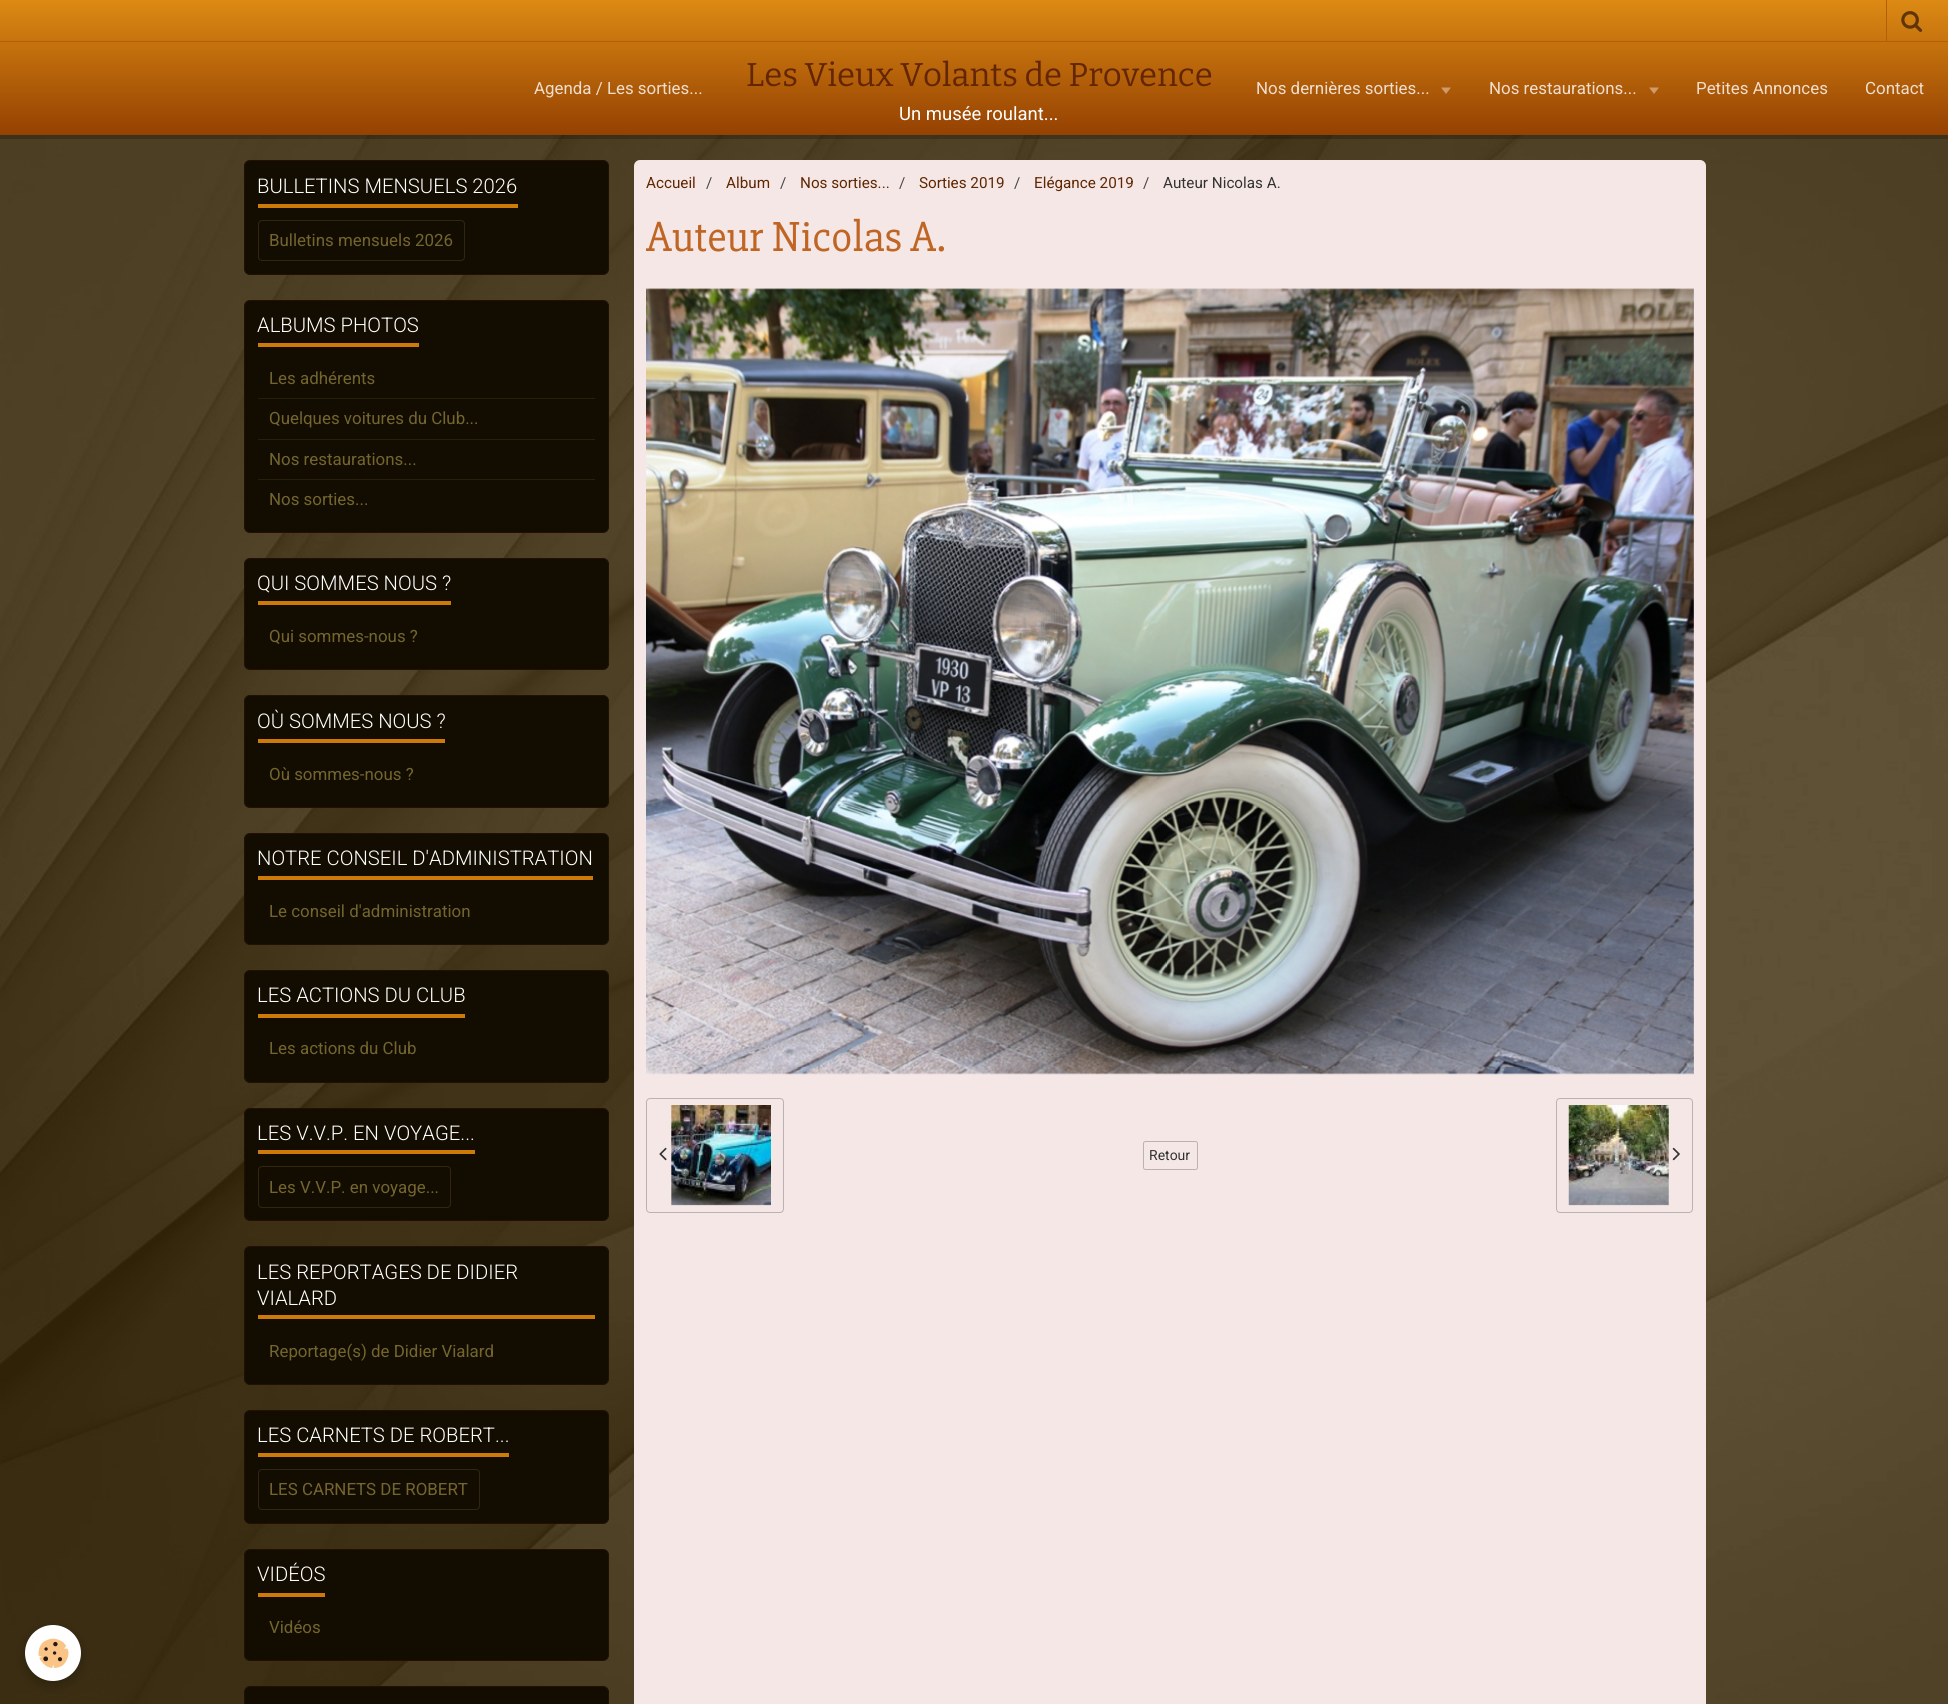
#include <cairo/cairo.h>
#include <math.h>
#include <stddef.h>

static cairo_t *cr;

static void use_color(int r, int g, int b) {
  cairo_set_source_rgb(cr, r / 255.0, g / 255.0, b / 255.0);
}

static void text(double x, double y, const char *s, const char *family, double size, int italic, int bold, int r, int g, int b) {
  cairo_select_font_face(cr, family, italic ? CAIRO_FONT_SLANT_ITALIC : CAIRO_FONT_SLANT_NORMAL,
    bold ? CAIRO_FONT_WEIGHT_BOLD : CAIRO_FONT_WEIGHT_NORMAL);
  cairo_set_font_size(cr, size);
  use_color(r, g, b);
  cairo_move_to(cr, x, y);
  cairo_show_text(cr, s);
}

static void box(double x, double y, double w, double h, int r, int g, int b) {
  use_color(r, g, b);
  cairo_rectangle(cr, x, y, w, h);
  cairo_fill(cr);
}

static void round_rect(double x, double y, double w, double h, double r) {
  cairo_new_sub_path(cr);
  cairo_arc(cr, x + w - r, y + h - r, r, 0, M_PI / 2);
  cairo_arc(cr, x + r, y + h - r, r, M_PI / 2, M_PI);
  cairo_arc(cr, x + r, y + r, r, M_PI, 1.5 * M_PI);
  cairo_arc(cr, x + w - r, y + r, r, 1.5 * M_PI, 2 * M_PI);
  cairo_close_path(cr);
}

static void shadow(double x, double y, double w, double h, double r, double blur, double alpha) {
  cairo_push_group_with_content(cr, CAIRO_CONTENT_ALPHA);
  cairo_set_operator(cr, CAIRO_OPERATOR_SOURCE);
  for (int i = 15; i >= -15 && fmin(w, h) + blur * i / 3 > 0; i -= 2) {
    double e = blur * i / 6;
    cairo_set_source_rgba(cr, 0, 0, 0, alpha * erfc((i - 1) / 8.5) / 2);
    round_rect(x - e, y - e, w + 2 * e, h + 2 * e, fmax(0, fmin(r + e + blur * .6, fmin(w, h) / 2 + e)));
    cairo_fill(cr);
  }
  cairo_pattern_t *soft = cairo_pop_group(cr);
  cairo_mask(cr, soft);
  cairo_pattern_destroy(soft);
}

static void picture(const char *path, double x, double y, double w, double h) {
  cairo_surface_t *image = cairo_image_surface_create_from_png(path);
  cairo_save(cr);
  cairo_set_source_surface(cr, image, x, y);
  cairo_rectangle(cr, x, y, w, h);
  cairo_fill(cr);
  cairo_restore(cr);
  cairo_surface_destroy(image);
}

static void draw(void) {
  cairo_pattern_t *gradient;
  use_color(56, 40, 6);
  cairo_paint(cr);
  picture("img_01.png", 0, 135, 1948, 1569);
  cairo_set_source_rgba(cr, 0, 0, 0, 0.2);
  cairo_new_path(cr);
  cairo_move_to(cr, 0, 135);
  cairo_line_to(cr, 0, 139);
  cairo_line_to(cr, 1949, 139);
  cairo_line_to(cr, 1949, 4);
  cairo_line_to(cr, 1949, 135);
  cairo_close_path(cr);
  cairo_fill(cr);
  gradient = cairo_pattern_create_linear(974, 0, 974, 135);
  cairo_pattern_add_color_stop_rgba(gradient, 0, 0.863, 0.541, 0.078, 1);
  cairo_pattern_add_color_stop_rgba(gradient, 1, 0.584, 0.255, 0.008, 1);
  cairo_set_source(cr, gradient);
  cairo_pattern_destroy(gradient);
  cairo_rectangle(cr, 0, 0, 1948, 135);
  cairo_fill(cr);
  box(0, 41, 1948, 1, 179, 95, 5);
  box(1886, 0, 1, 41, 179, 95, 5);
  picture("img_02.png", 1901, 11, 22, 21);
  use_color(206, 155, 107);
  cairo_new_path(cr);
  cairo_move_to(cr, 1441, 87.5);
  cairo_line_to(cr, 1451, 87.5);
  cairo_line_to(cr, 1446, 94);
  cairo_close_path(cr);
  cairo_fill(cr);
  cairo_new_path(cr);
  cairo_move_to(cr, 1649, 87.5);
  cairo_line_to(cr, 1659, 87.5);
  cairo_line_to(cr, 1654, 94);
  cairo_close_path(cr);
  cairo_fill(cr);
  use_color(19, 13, 1);
  round_rect(244.5, 160.5, 364, 114, 5.5);
  cairo_fill_preserve(cr);
  use_color(35, 15, 3);
  cairo_set_line_width(cr, 1);
  cairo_stroke(cr);
  box(258, 204, 260, 4, 206, 122, 9);
  round_rect(258.5, 220.5, 206, 40, 3.5);
  use_color(48, 39, 14);
  cairo_stroke(cr);
  use_color(19, 13, 1);
  round_rect(244.5, 300.5, 364, 232, 5.5);
  cairo_fill_preserve(cr);
  use_color(35, 15, 3);
  cairo_stroke(cr);
  box(258, 343, 161, 4, 206, 122, 9);
  box(258, 398, 337, 1, 38, 31, 10);
  box(258, 439, 337, 1, 38, 31, 10);
  box(258, 479, 337, 1, 38, 31, 10);
  use_color(19, 13, 1);
  round_rect(244.5, 558.5, 364, 111, 5.5);
  cairo_fill_preserve(cr);
  use_color(35, 15, 3);
  cairo_stroke(cr);
  box(258, 601, 193, 4, 206, 122, 9);
  use_color(19, 13, 1);
  round_rect(244.5, 695.5, 364, 112, 5.5);
  cairo_fill_preserve(cr);
  use_color(35, 15, 3);
  cairo_stroke(cr);
  box(258, 739, 187, 4, 206, 122, 9);
  use_color(19, 13, 1);
  round_rect(244.5, 833.5, 364, 111, 5.5);
  cairo_fill_preserve(cr);
  use_color(35, 15, 3);
  cairo_stroke(cr);
  box(258, 876, 335, 4, 206, 122, 9);
  use_color(19, 13, 1);
  round_rect(244.5, 970.5, 364, 112, 5.5);
  cairo_fill_preserve(cr);
  use_color(35, 15, 3);
  cairo_stroke(cr);
  box(258, 1014, 207, 4, 206, 122, 9);
  use_color(19, 13, 1);
  round_rect(244.5, 1108.5, 364, 112, 5.5);
  cairo_fill_preserve(cr);
  use_color(35, 15, 3);
  cairo_stroke(cr);
  box(258, 1150, 217, 4, 206, 122, 9);
  round_rect(258.5, 1166.5, 192, 41, 3.5);
  use_color(48, 39, 14);
  cairo_stroke(cr);
  use_color(19, 13, 1);
  round_rect(244.5, 1246.5, 364, 138, 5.5);
  cairo_fill_preserve(cr);
  use_color(35, 15, 3);
  cairo_stroke(cr);
  box(258, 1315, 337, 4, 206, 122, 9);
  use_color(19, 13, 1);
  round_rect(244.5, 1410.5, 364, 113, 5.5);
  cairo_fill_preserve(cr);
  use_color(35, 15, 3);
  cairo_stroke(cr);
  box(258, 1453, 251, 4, 206, 122, 9);
  round_rect(258.5, 1469.5, 221, 40, 3.5);
  use_color(48, 39, 14);
  cairo_stroke(cr);
  use_color(19, 13, 1);
  round_rect(244.5, 1549.5, 364, 111, 5.5);
  cairo_fill_preserve(cr);
  use_color(35, 15, 3);
  cairo_stroke(cr);
  box(258, 1593, 67, 4, 206, 122, 9);
  use_color(19, 13, 1);
  round_rect(244.5, 1686.5, 364, 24, 5.5);
  cairo_fill_preserve(cr);
  use_color(35, 15, 3);
  cairo_stroke(cr);
  use_color(246, 231, 231);
  round_rect(634, 160, 1072, 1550, 6);
  cairo_fill(cr);
  picture("img_03.png", 646, 288, 1048, 787);
  picture("img_04.png", 659, 1147, 8, 14);
  picture("img_05.png", 671, 1105, 100, 101);
  round_rect(646.5, 1098.5, 137, 114, 3.5);
  use_color(188, 177, 177);
  cairo_stroke(cr);
  round_rect(1143.5, 1141.5, 54, 28, 2);
  cairo_stroke(cr);
  picture("img_06.png", 1568, 1105, 101, 101);
  picture("img_07.png", 1672, 1147, 8, 14);
  round_rect(1556.5, 1098.5, 136, 114, 3.5);
  cairo_stroke(cr);
  use_color(0, 0, 0);
  shadow(25, 1629, 56, 56, 28, 6, 0.24);
  use_color(255, 255, 255);
  cairo_arc(cr, 53, 1653, 28, 0, 2 * M_PI);
  cairo_fill(cr);
  picture("img_08.png", 38, 1638, 31, 30);
  text(534, 94, "Agenda / Les sorties...", "Roboto", 16.9, 0, 0, 239, 222, 206);
  text(746, 86, "Les Vieux Volants de Provence", "Bitter Thin", 32.9, 0, 0, 100, 37, 2);
  text(899, 120, "Un musée roulant...", "Roboto", 18.5, 0, 0, 255, 255, 255);
  text(1256, 94, "Nos dernières sorties...", "Roboto", 16.9, 0, 0, 239, 222, 206);
  text(1489, 94, "Nos restaurations...", "Roboto", 16.9, 0, 0, 239, 222, 206);
  text(1696, 94, "Petites Annonces", "Roboto", 16.9, 0, 0, 239, 222, 206);
  text(1865, 94, "Contact", "Roboto", 16.9, 0, 0, 239, 222, 206);
  text(257, 193, "BULLETINS MENSUELS 2026", "Roboto Light", 20.25, 0, 0, 255, 255, 255);
  text(269, 246, "Bulletins mensuels 2026", "Roboto", 16.9, 0, 0, 115, 101, 45);
  text(257, 332, "ALBUMS PHOTOS", "Roboto Light", 20.25, 0, 0, 255, 255, 255);
  text(269, 384, "Les adhérents", "Roboto", 16.9, 0, 0, 115, 101, 45);
  text(269, 424, "Quelques voitures du Club...", "Roboto", 16.9, 0, 0, 115, 101, 45);
  text(269, 465, "Nos restaurations...", "Roboto", 16.9, 0, 0, 115, 101, 45);
  text(269, 505, "Nos sorties...", "Roboto", 16.9, 0, 0, 115, 101, 45);
  text(257, 590, "QUI SOMMES NOUS ?", "Roboto Light", 20.25, 0, 0, 255, 255, 255);
  text(269, 642, "Qui sommes-nous ?", "Roboto", 16.9, 0, 0, 115, 101, 45);
  text(257, 728, "OÙ SOMMES NOUS ?", "Roboto Light", 20.25, 0, 0, 255, 255, 255);
  text(269, 780, "Où sommes-nous ?", "Roboto", 16.9, 0, 0, 115, 101, 45);
  text(257, 865, "NOTRE CONSEIL D'ADMINISTRATION", "Roboto Light", 20.25, 0, 0, 255, 255, 255);
  text(269, 917, "Le conseil d'administration", "Roboto", 16.9, 0, 0, 115, 101, 45);
  text(257, 1002, "LES ACTIONS DU CLUB", "Roboto Light", 20.25, 0, 0, 255, 255, 255);
  text(269, 1054, "Les actions du Club", "Roboto", 16.9, 0, 0, 115, 101, 45);
  text(257, 1140, "LES V.V.P. EN VOYAGE...", "Roboto Light", 20.25, 0, 0, 255, 255, 255);
  text(269, 1193, "Les V.V.P. en voyage...", "Roboto", 16.9, 0, 0, 115, 101, 45);
  text(257, 1279, "LES REPORTAGES DE DIDIER", "Roboto Light", 20.25, 0, 0, 255, 255, 255);
  text(257, 1305, "VIALARD", "Roboto Light", 20.25, 0, 0, 255, 255, 255);
  text(269, 1357, "Reportage(s) de Didier Vialard", "Roboto", 16.9, 0, 0, 115, 101, 45);
  text(257, 1442, "LES CARNETS DE ROBERT...", "Roboto Light", 20.25, 0, 0, 255, 255, 255);
  text(269, 1495, "LES CARNETS DE ROBERT", "Roboto", 16.9, 0, 0, 115, 101, 45);
  text(257, 1581, "VIDÉOS", "Roboto Light", 20.25, 0, 0, 255, 255, 255);
  text(269, 1633, "Vidéos", "Roboto", 16.9, 0, 0, 115, 101, 45);
  text(646, 188, "Accueil", "Roboto", 15.25, 0, 0, 94, 39, 1);
  text(706, 188, "/", "Roboto", 15.25, 0, 0, 71, 71, 71);
  text(726, 188, "Album", "Roboto", 15.25, 0, 0, 94, 39, 1);
  text(780, 188, "/", "Roboto", 15.25, 0, 0, 71, 71, 71);
  text(800, 188, "Nos sorties...", "Roboto", 15.25, 0, 0, 94, 39, 1);
  text(899, 188, "/", "Roboto", 15.25, 0, 0, 71, 71, 71);
  text(919, 188, "Sorties 2019", "Roboto", 15.25, 0, 0, 94, 39, 1);
  text(1014, 188, "/", "Roboto", 15.25, 0, 0, 71, 71, 71);
  text(1034, 188, "Elégance 2019", "Roboto", 15.25, 0, 0, 94, 39, 1);
  text(1143, 188, "/", "Roboto", 15.25, 0, 0, 71, 71, 71);
  text(1163, 188, "Auteur Nicolas A.", "Roboto", 15.25, 0, 0, 51, 51, 51);
  text(646, 251, "Auteur Nicolas A.", "Slabo 27px", 43.5, 0, 0, 191, 102, 37);
  text(1149, 1160, "Retour", "Roboto", 14, 0, 0, 51, 51, 51);
}

int main(void) {
  cairo_surface_t *surface = cairo_image_surface_create(CAIRO_FORMAT_RGB24, 1948, 1704);
  cr = cairo_create(surface);
  cairo_font_options_t *options = cairo_font_options_create();
  cairo_font_options_set_hint_metrics(options, CAIRO_HINT_METRICS_OFF);
  cairo_font_options_set_hint_style(options, CAIRO_HINT_STYLE_NONE);
  cairo_set_font_options(cr, options);
  cairo_set_miter_limit(cr, 4);
  draw();
  cairo_surface_write_to_png(surface, "out.png");
  cairo_font_options_destroy(options);
  cairo_destroy(cr);
  cairo_surface_destroy(surface);
  return 0;
}
